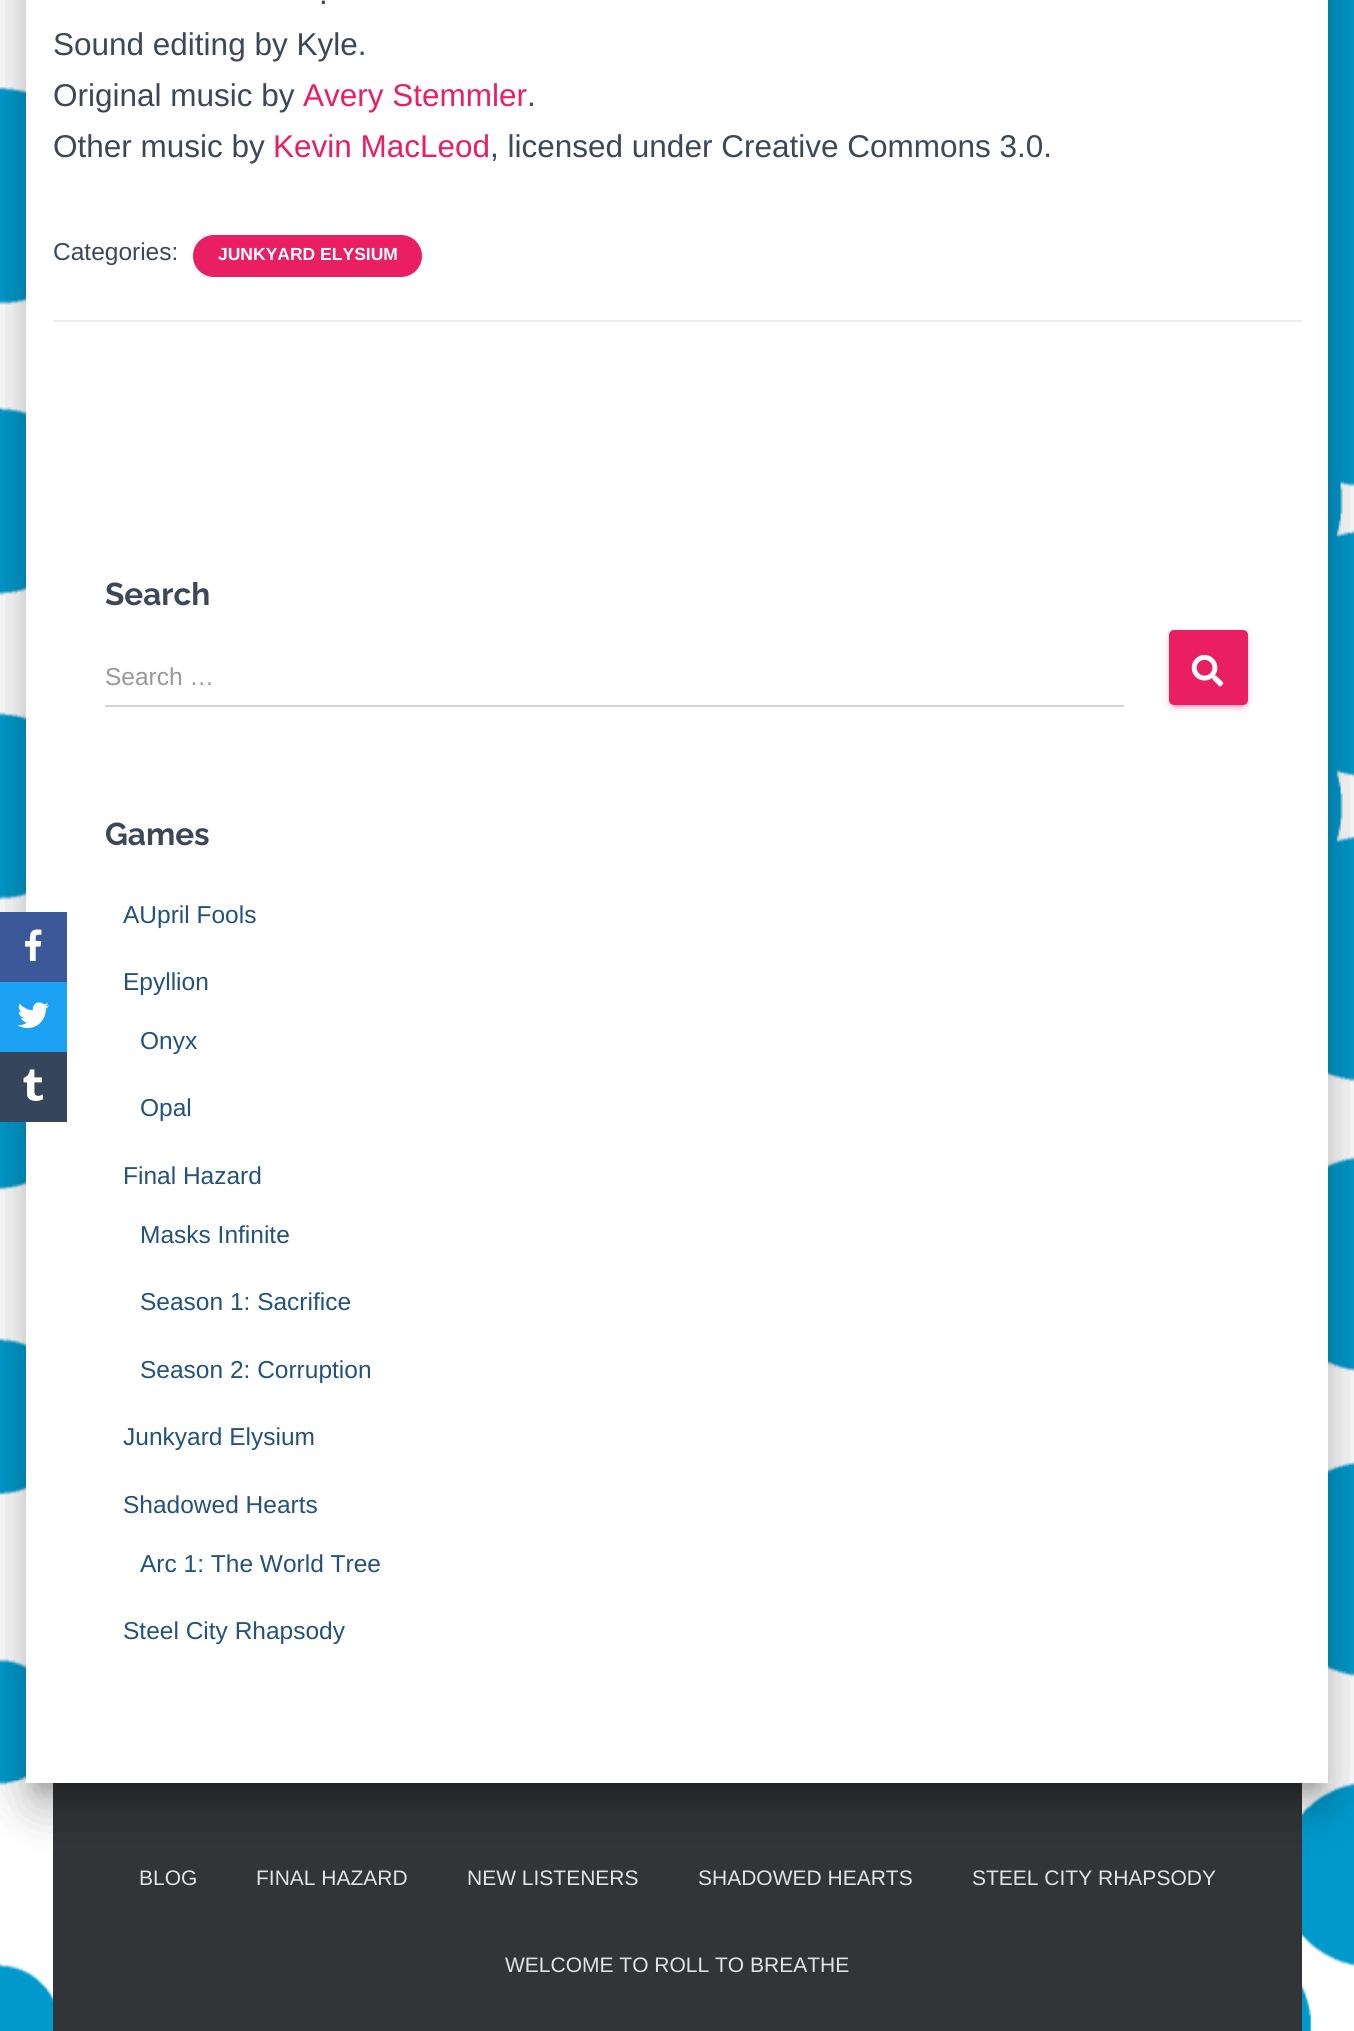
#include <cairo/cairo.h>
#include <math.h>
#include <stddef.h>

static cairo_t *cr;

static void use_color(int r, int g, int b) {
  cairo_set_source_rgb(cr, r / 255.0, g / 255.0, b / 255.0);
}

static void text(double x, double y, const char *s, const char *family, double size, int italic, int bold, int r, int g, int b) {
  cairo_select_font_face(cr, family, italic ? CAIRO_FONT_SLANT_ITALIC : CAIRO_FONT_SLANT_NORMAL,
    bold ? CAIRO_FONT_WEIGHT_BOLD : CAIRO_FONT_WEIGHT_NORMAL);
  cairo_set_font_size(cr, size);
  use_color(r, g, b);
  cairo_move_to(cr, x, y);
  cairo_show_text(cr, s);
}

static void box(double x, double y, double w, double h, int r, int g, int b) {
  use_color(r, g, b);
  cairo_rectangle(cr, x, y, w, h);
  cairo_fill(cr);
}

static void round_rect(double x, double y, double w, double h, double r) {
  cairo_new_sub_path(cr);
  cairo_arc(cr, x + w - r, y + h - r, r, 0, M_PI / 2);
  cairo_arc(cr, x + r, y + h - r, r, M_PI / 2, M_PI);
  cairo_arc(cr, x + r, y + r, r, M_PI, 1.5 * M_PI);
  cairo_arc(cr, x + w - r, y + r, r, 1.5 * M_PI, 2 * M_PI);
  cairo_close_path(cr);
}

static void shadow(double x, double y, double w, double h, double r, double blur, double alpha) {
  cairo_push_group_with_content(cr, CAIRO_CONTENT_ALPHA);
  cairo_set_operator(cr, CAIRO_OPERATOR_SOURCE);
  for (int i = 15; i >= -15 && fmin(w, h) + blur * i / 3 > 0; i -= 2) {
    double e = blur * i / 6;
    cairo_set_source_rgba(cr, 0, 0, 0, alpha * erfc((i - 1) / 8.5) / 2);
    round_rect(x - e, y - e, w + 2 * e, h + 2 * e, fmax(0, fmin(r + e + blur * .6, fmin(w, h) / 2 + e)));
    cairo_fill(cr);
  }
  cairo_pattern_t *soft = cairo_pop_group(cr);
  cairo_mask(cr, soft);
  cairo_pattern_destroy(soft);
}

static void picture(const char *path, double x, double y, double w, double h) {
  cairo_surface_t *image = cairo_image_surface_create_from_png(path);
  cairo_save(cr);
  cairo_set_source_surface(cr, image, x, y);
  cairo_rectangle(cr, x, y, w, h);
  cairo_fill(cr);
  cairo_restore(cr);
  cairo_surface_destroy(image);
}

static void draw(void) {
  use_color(255, 255, 255);
  cairo_paint(cr);
  picture("img_01.png", 0, 0, 1354, 2031);
  box(53, 1783, 1249, 248, 50, 52, 55);
  use_color(0, 0, 0);
  shadow(35, -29, 1285, 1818, 2, 9, 0.2);
  shadow(18, -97, 1319, 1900, 19, 26, 0.12);
  shadow(23, -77, 1309, 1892, 14, 21, 0.14);
  box(26, 0, 1302, 1783, 255, 255, 255);
  box(0, 912, 67, 70, 59, 89, 152);
  picture("img_02.png", 25, 929, 17, 32);
  box(0, 982, 67, 70, 29, 161, 242);
  picture("img_03.png", 17, 1002, 32, 26);
  box(0, 1052, 67, 70, 53, 70, 92);
  picture("img_04.png", 23, 1069, 20, 32);
  use_color(233, 30, 99);
  round_rect(193, 235, 229, 42, 21);
  cairo_fill(cr);
  box(53, 320, 1249, 2, 238, 238, 238);
  use_color(233, 30, 99);
  shadow(1169, 632, 79, 75, 5, 4.5, 0.12);
  shadow(1173, 639, 71, 68, 2, 1, 0.2);
  shadow(1169, 634, 79, 75, 5, 2, 0.14);
  use_color(233, 30, 99);
  round_rect(1169, 630, 79, 75, 5);
  cairo_fill(cr);
  box(105, 705, 1019, 2, 210, 210, 210);
  picture("img_05.png", 1191, 654, 33, 33);
  text(319, 4, ".", "Liberation Sans", 31.5, 0, 0, 60, 72, 88);
  text(53, 55, "Sound editing by Kyle.", "Liberation Sans", 31.5, 0, 0, 60, 72, 88);
  text(53, 106, "Original music by", "Liberation Sans", 31.5, 0, 0, 60, 72, 88);
  text(303, 106, "Avery Stemmler", "Liberation Sans", 31.5, 0, 0, 233, 30, 99);
  text(527, 106, ".", "Liberation Sans", 31.5, 0, 0, 60, 72, 88);
  text(53, 157, "Other music by", "Liberation Sans", 31.5, 0, 0, 60, 72, 88);
  text(273, 157, "Kevin MacLeod", "Liberation Sans", 31.5, 0, 0, 233, 30, 99);
  text(490, 157, ", licensed under Creative Commons 3.0.", "Liberation Sans", 31.5, 0, 0, 60, 72, 88);
  text(53, 260, "Categories:", "Liberation Sans", 24.5, 0, 0, 60, 72, 88);
  text(218, 260, "JUNKYARD ELYSIUM", "Liberation Sans", 17.5, 0, 1, 255, 255, 255);
  text(105, 605, "Search", "Raleway", 31.5, 0, 1, 60, 72, 88);
  text(105, 685, "Search …", "Liberation Sans", 24.5, 0, 0, 153, 153, 153);
  text(105, 845, "Games", "Raleway", 31.5, 0, 1, 60, 72, 88);
  text(123, 923, "AUpril Fools", "Liberation Sans", 24.5, 0, 0, 35, 82, 124);
  text(123, 990, "Epyllion", "Liberation Sans", 24.5, 0, 0, 35, 82, 124);
  text(140, 1049, "Onyx", "Liberation Sans", 24.5, 0, 0, 35, 82, 124);
  text(140, 1116, "Opal", "Liberation Sans", 24.5, 0, 0, 35, 82, 124);
  text(123, 1184, "Final Hazard", "Liberation Sans", 24.5, 0, 0, 35, 82, 124);
  text(140, 1243, "Masks Infinite", "Liberation Sans", 24.5, 0, 0, 35, 82, 124);
  text(140, 1310, "Season 1: Sacrifice", "Liberation Sans", 24.5, 0, 0, 35, 82, 124);
  text(140, 1378, "Season 2: Corruption", "Liberation Sans", 24.5, 0, 0, 35, 82, 124);
  text(123, 1445, "Junkyard Elysium", "Liberation Sans", 24.5, 0, 0, 35, 82, 124);
  text(123, 1513, "Shadowed Hearts", "Liberation Sans", 24.5, 0, 0, 35, 82, 124);
  text(140, 1572, "Arc 1: The World Tree", "Liberation Sans", 24.5, 0, 0, 35, 82, 124);
  text(123, 1639, "Steel City Rhapsody", "Liberation Sans", 24.5, 0, 0, 35, 82, 124);
  text(139, 1885, "BLOG", "Liberation Sans", 21, 0, 0, 226, 227, 227);
  text(256, 1885, "FINAL HAZARD", "Liberation Sans", 21, 0, 0, 226, 227, 227);
  text(467, 1885, "NEW LISTENERS", "Liberation Sans", 21, 0, 0, 226, 227, 227);
  text(698, 1885, "SHADOWED HEARTS", "Liberation Sans", 21, 0, 0, 226, 227, 227);
  text(972, 1885, "STEEL CITY RHAPSODY", "Liberation Sans", 21, 0, 0, 226, 227, 227);
  text(505, 1972, "WELCOME TO ROLL TO BREATHE", "Liberation Sans", 21, 0, 0, 226, 227, 227);
}

int main(void) {
  cairo_surface_t *surface = cairo_image_surface_create(CAIRO_FORMAT_RGB24, 1354, 2031);
  cr = cairo_create(surface);
  cairo_font_options_t *options = cairo_font_options_create();
  cairo_font_options_set_hint_metrics(options, CAIRO_HINT_METRICS_OFF);
  cairo_font_options_set_hint_style(options, CAIRO_HINT_STYLE_NONE);
  cairo_set_font_options(cr, options);
  cairo_set_miter_limit(cr, 4);
  draw();
  cairo_surface_write_to_png(surface, "out.png");
  cairo_font_options_destroy(options);
  cairo_destroy(cr);
  cairo_surface_destroy(surface);
  return 0;
}
